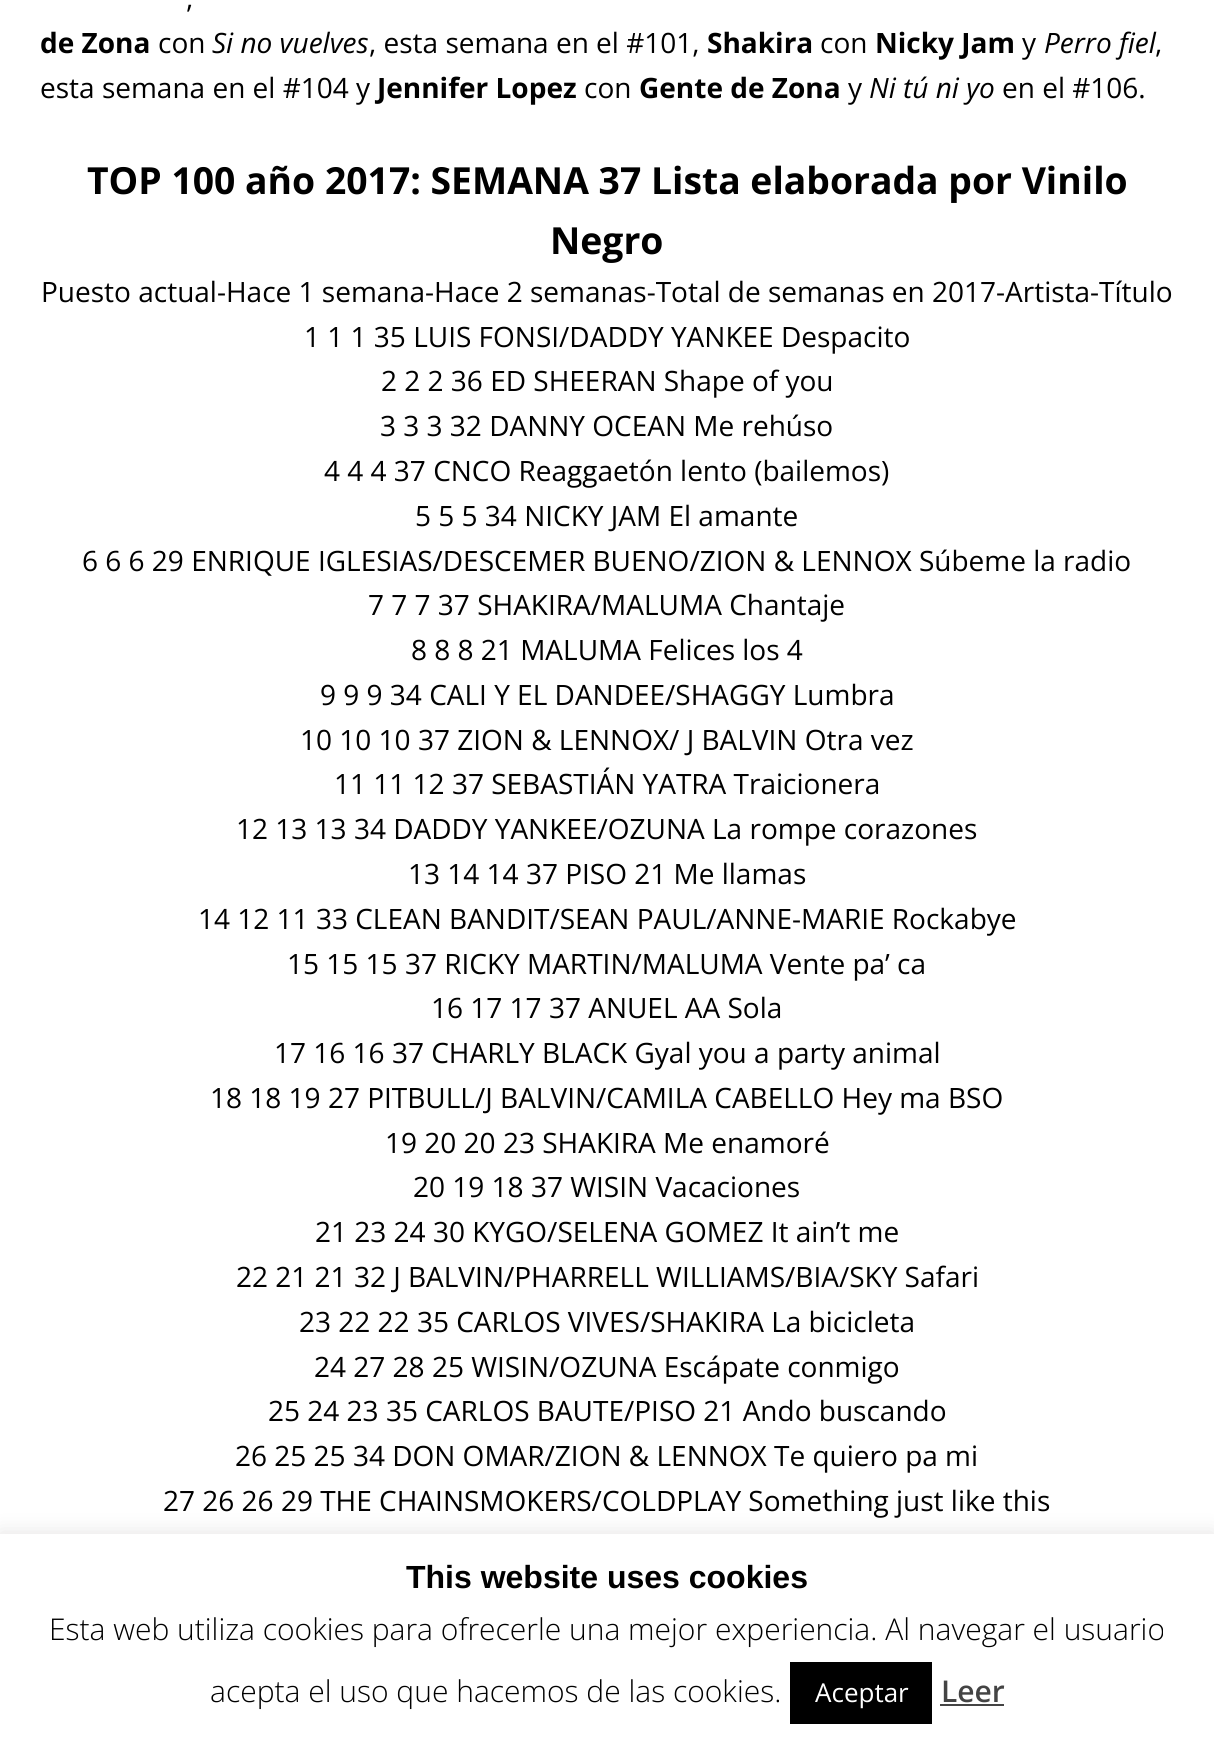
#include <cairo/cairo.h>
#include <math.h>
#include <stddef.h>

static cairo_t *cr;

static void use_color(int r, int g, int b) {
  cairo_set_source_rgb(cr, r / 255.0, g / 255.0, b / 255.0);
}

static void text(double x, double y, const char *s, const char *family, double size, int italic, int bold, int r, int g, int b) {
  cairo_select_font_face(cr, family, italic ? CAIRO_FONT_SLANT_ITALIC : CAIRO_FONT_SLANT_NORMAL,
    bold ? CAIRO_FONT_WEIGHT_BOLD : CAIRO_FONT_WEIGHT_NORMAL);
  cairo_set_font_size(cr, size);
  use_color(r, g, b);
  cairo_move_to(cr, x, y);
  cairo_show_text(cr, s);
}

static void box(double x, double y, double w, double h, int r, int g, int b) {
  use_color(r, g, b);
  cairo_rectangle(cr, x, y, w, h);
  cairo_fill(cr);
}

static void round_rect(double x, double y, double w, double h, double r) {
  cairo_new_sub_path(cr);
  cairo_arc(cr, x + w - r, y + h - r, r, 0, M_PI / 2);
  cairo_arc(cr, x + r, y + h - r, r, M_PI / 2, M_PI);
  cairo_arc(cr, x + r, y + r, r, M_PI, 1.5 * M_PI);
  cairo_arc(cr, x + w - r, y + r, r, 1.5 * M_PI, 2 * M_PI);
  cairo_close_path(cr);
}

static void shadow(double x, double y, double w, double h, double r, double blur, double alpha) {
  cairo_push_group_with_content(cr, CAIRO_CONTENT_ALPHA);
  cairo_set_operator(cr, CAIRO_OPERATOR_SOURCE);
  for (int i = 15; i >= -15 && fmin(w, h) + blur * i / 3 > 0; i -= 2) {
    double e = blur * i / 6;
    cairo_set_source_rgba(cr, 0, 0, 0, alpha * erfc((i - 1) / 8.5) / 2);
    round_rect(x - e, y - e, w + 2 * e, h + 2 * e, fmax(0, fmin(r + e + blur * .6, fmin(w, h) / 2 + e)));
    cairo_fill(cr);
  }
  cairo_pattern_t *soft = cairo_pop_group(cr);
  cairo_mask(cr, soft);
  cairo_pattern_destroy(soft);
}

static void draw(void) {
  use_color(255, 255, 255);
  cairo_paint(cr);
  use_color(172, 171, 171);
  shadow(0, 1532, 1214, 214, 0, 10, 0.3);
  box(0, 1534, 1214, 214, 255, 255, 255);
  box(790, 1662, 142, 62, 0, 0, 0);
  box(940, 1704, 64, 2, 68, 68, 68);
  text(186, 8, ",", "Open Sans", 28, 0, 0, 0, 0, 0);
  text(40, 53, "de Zona", "Open Sans", 28, 0, 1, 0, 0, 0);
  text(158, 53, "con", "Open Sans", 28, 0, 0, 0, 0, 0);
  text(212, 53, "Si no vuelves", "Open Sans", 28, 1, 0, 0, 0, 0);
  text(369, 53, ", esta semana en el #101,", "Open Sans", 28, 0, 0, 0, 0, 0);
  text(707, 53, "Shakira", "Open Sans", 28, 0, 1, 0, 0, 0);
  text(820, 53, "con", "Open Sans", 28, 0, 0, 0, 0, 0);
  text(875, 53, "Nicky Jam", "Open Sans", 28, 0, 1, 0, 0, 0);
  text(1022, 53, "y", "Open Sans", 28, 0, 0, 0, 0, 0);
  text(1044, 53, "Perro fiel", "Open Sans", 28, 1, 0, 0, 0, 0);
  text(1155, 53, ",", "Open Sans", 28, 0, 0, 0, 0, 0);
  text(40, 98, "esta semana en el #104 y", "Open Sans", 28, 0, 0, 0, 0, 0);
  text(377, 98, "Jennifer Lopez", "Open Sans", 28, 0, 1, 0, 0, 0);
  text(584, 98, "con", "Open Sans", 28, 0, 0, 0, 0, 0);
  text(639, 98, "Gente de Zona", "Open Sans", 28, 0, 1, 0, 0, 0);
  text(848, 98, "y", "Open Sans", 28, 0, 0, 0, 0, 0);
  text(869, 98, "Ni tú ni yo", "Open Sans", 28, 1, 0, 0, 0, 0);
  text(1002, 98, "en el #106.", "Open Sans", 28, 0, 0, 0, 0, 0);
  text(87, 194, "TOP 100 año 2017: SEMANA 37 Lista elaborada por Vinilo", "Open Sans", 37.3, 0, 1, 0, 0, 0);
  text(550, 254, "Negro", "Open Sans", 37.3, 0, 1, 0, 0, 0);
  text(41, 302, "Puesto actual-Hace 1 semana-Hace 2 semanas-Total de semanas en 2017-Artista-Título", "Open Sans", 28, 0, 0, 0, 0, 0);
  text(304, 347, "1 1 1 35 LUIS FONSI/DADDY YANKEE Despacito", "Open Sans", 28, 0, 0, 0, 0, 0);
  text(381, 391, "2 2 2 36 ED SHEERAN Shape of you", "Open Sans", 28, 0, 0, 0, 0, 0);
  text(380, 436, "3 3 3 32 DANNY OCEAN Me rehúso", "Open Sans", 28, 0, 0, 0, 0, 0);
  text(324, 481, "4 4 4 37 CNCO Reaggaetón lento (bailemos)", "Open Sans", 28, 0, 0, 0, 0, 0);
  text(415, 526, "5 5 5 34 NICKY JAM El amante", "Open Sans", 28, 0, 0, 0, 0, 0);
  text(82, 571, "6 6 6 29 ENRIQUE IGLESIAS/DESCEMER BUENO/ZION & LENNOX Súbeme la radio", "Open Sans", 28, 0, 0, 0, 0, 0);
  text(368, 615, "7 7 7 37 SHAKIRA/MALUMA Chantaje", "Open Sans", 28, 0, 0, 0, 0, 0);
  text(411, 660, "8 8 8 21 MALUMA Felices los 4", "Open Sans", 28, 0, 0, 0, 0, 0);
  text(320, 705, "9 9 9 34 CALI Y EL DANDEE/SHAGGY Lumbra", "Open Sans", 28, 0, 0, 0, 0, 0);
  text(300, 750, "10 10 10 37 ZION & LENNOX/ J BALVIN Otra vez", "Open Sans", 28, 0, 0, 0, 0, 0);
  text(334, 794, "11 11 12 37 SEBASTIÁN YATRA Traicionera", "Open Sans", 28, 0, 0, 0, 0, 0);
  text(236, 839, "12 13 13 34 DADDY YANKEE/OZUNA La rompe corazones", "Open Sans", 28, 0, 0, 0, 0, 0);
  text(408, 884, "13 14 14 37 PISO 21 Me llamas", "Open Sans", 28, 0, 0, 0, 0, 0);
  text(198, 929, "14 12 11 33 CLEAN BANDIT/SEAN PAUL/ANNE-MARIE Rockabye", "Open Sans", 28, 0, 0, 0, 0, 0);
  text(287, 974, "15 15 15 37 RICKY MARTIN/MALUMA Vente pa’ ca", "Open Sans", 28, 0, 0, 0, 0, 0);
  text(431, 1018, "16 17 17 37 ANUEL AA Sola", "Open Sans", 28, 0, 0, 0, 0, 0);
  text(274, 1063, "17 16 16 37 CHARLY BLACK Gyal you a party animal", "Open Sans", 28, 0, 0, 0, 0, 0);
  text(210, 1108, "18 18 19 27 PITBULL/J BALVIN/CAMILA CABELLO Hey ma BSO", "Open Sans", 28, 0, 0, 0, 0, 0);
  text(385, 1153, "19 20 20 23 SHAKIRA Me enamoré", "Open Sans", 28, 0, 0, 0, 0, 0);
  text(413, 1197, "20 19 18 37 WISIN Vacaciones", "Open Sans", 28, 0, 0, 0, 0, 0);
  text(315, 1242, "21 23 24 30 KYGO/SELENA GOMEZ It ain’t me", "Open Sans", 28, 0, 0, 0, 0, 0);
  text(236, 1287, "22 21 21 32 J BALVIN/PHARRELL WILLIAMS/BIA/SKY Safari", "Open Sans", 28, 0, 0, 0, 0, 0);
  text(299, 1332, "23 22 22 35 CARLOS VIVES/SHAKIRA La bicicleta", "Open Sans", 28, 0, 0, 0, 0, 0);
  text(314, 1377, "24 27 28 25 WISIN/OZUNA Escápate conmigo", "Open Sans", 28, 0, 0, 0, 0, 0);
  text(268, 1421, "25 24 23 35 CARLOS BAUTE/PISO 21 Ando buscando", "Open Sans", 28, 0, 0, 0, 0, 0);
  text(235, 1466, "26 25 25 34 DON OMAR/ZION & LENNOX Te quiero pa mi", "Open Sans", 28, 0, 0, 0, 0, 0);
  text(163, 1511, "27 26 26 29 THE CHAINSMOKERS/COLDPLAY Something just like this", "Open Sans", 28, 0, 0, 0, 0, 0);
  text(406, 1588, "This website uses cookies", "Arimo", 32, 0, 1, 0, 0, 0);
  text(49, 1640, "Esta web utiliza cookies para ofrecerle una mejor experiencia. Al navegar el usuario", "Open Sans Light", 30, 0, 0, 0, 0, 0);
  text(210, 1702, "acepta el uso que hacemos de las cookies.", "Open Sans Light", 30, 0, 0, 0, 0, 0);
  text(815, 1702, "Aceptar", "Open Sans", 26, 0, 0, 255, 255, 255);
  text(941, 1702, "Leer", "Open Sans SemiBold", 30, 0, 0, 68, 68, 68);
}

int main(void) {
  cairo_surface_t *surface = cairo_image_surface_create(CAIRO_FORMAT_RGB24, 1214, 1748);
  cr = cairo_create(surface);
  cairo_font_options_t *options = cairo_font_options_create();
  cairo_font_options_set_hint_metrics(options, CAIRO_HINT_METRICS_OFF);
  cairo_font_options_set_hint_style(options, CAIRO_HINT_STYLE_NONE);
  cairo_set_font_options(cr, options);
  cairo_set_miter_limit(cr, 4);
  draw();
  cairo_surface_write_to_png(surface, "out.png");
  cairo_font_options_destroy(options);
  cairo_destroy(cr);
  cairo_surface_destroy(surface);
  return 0;
}
